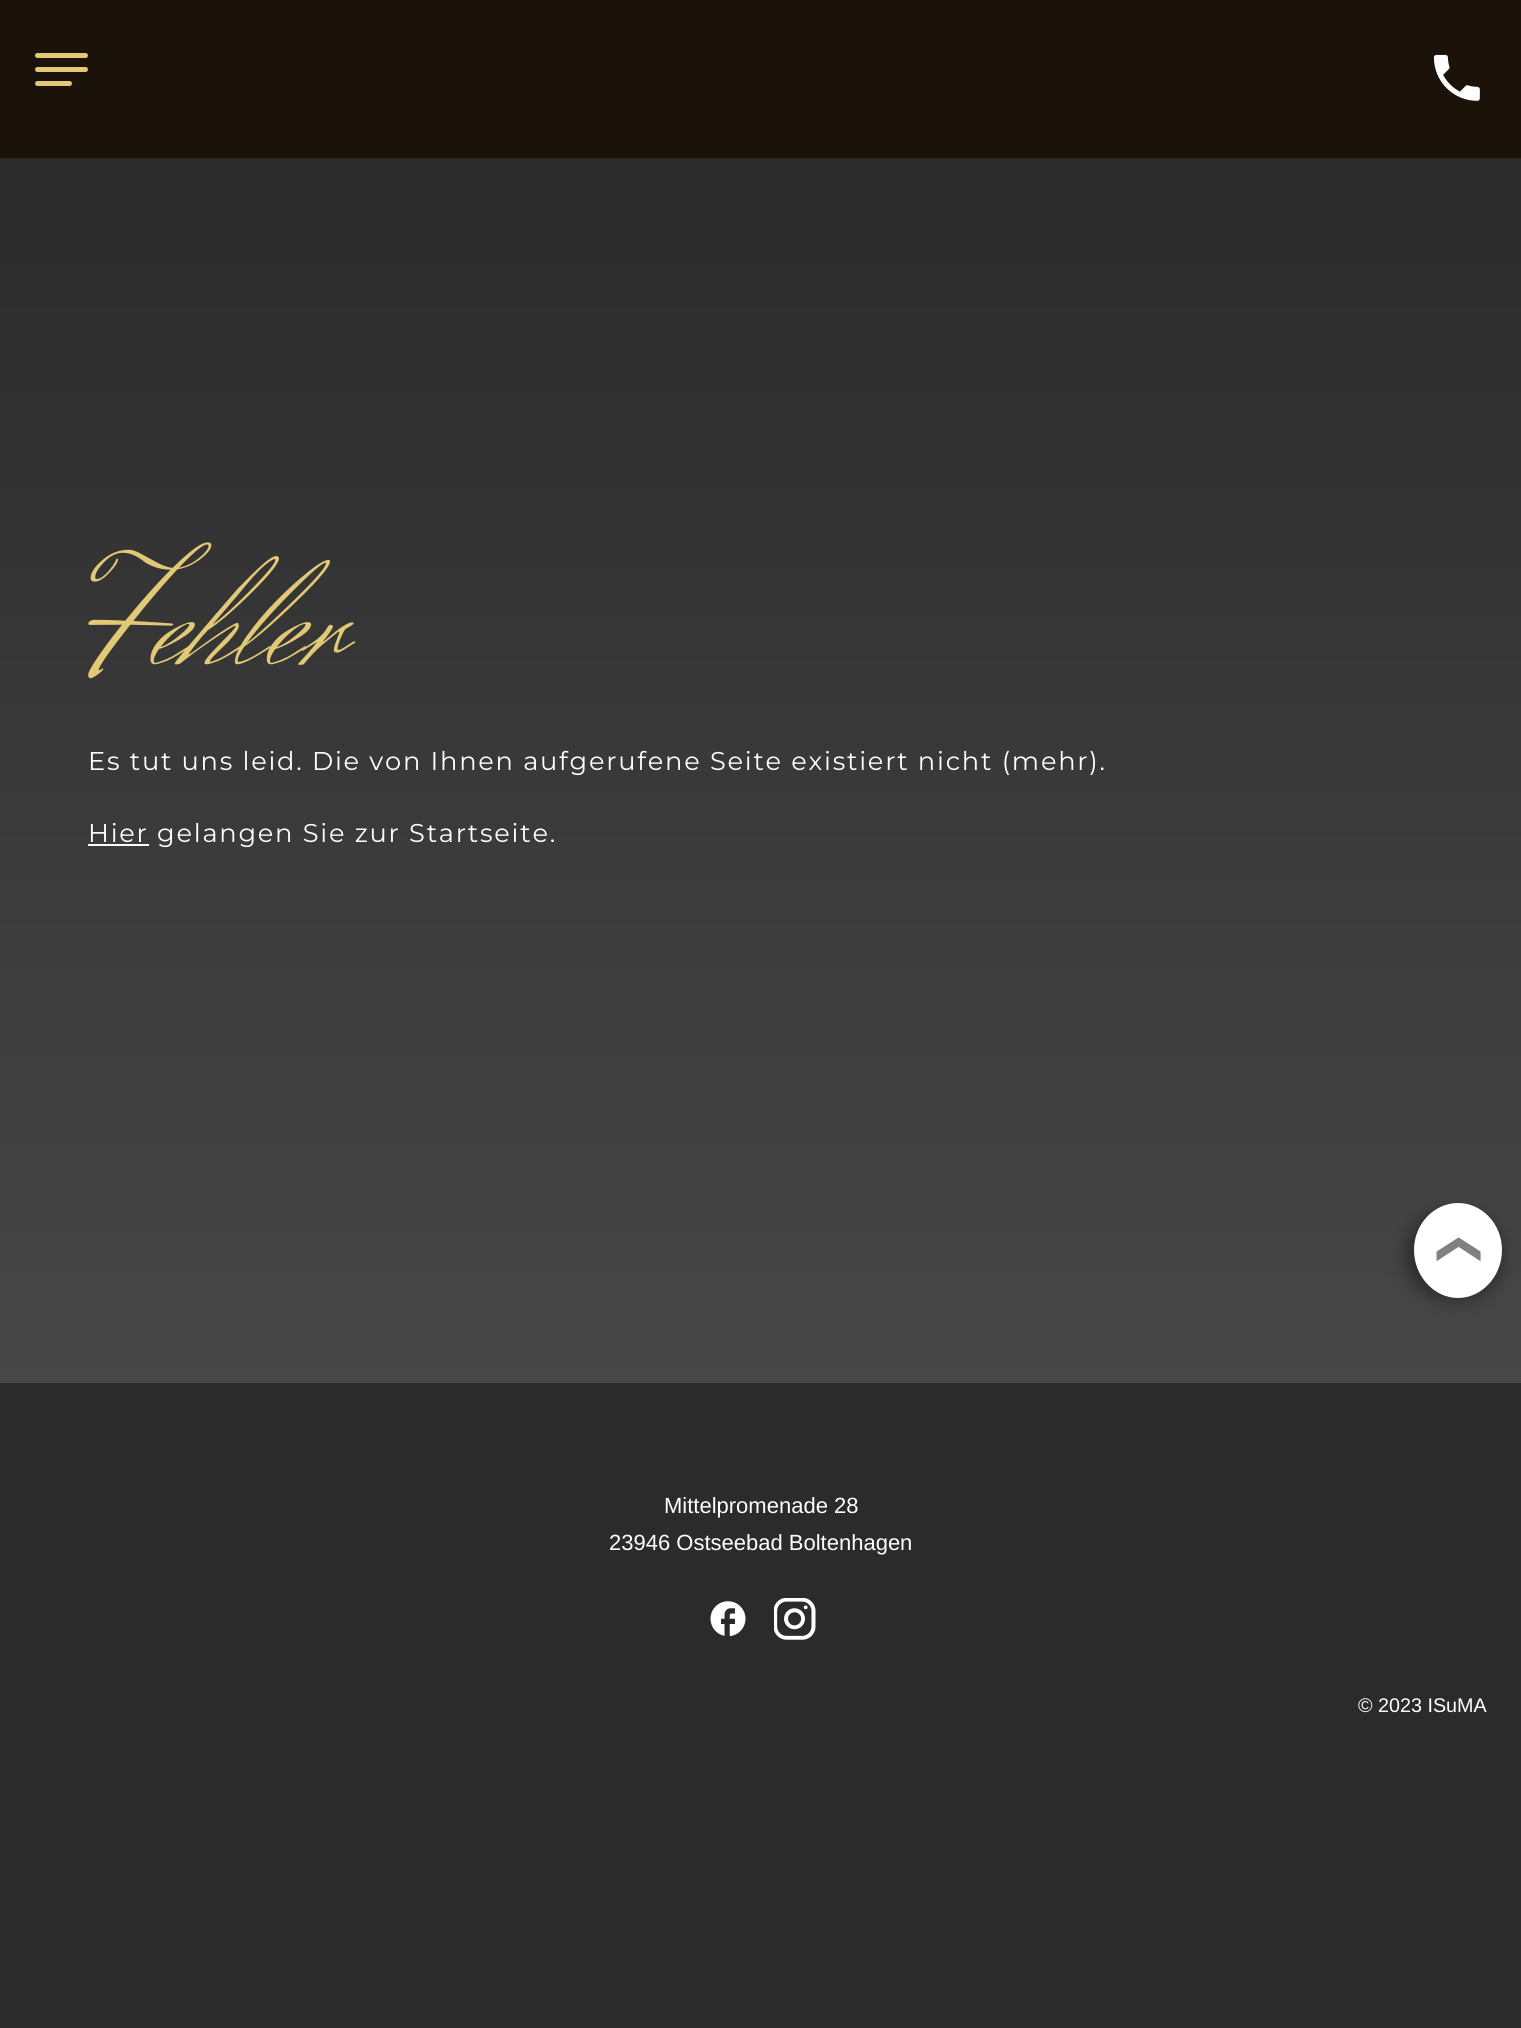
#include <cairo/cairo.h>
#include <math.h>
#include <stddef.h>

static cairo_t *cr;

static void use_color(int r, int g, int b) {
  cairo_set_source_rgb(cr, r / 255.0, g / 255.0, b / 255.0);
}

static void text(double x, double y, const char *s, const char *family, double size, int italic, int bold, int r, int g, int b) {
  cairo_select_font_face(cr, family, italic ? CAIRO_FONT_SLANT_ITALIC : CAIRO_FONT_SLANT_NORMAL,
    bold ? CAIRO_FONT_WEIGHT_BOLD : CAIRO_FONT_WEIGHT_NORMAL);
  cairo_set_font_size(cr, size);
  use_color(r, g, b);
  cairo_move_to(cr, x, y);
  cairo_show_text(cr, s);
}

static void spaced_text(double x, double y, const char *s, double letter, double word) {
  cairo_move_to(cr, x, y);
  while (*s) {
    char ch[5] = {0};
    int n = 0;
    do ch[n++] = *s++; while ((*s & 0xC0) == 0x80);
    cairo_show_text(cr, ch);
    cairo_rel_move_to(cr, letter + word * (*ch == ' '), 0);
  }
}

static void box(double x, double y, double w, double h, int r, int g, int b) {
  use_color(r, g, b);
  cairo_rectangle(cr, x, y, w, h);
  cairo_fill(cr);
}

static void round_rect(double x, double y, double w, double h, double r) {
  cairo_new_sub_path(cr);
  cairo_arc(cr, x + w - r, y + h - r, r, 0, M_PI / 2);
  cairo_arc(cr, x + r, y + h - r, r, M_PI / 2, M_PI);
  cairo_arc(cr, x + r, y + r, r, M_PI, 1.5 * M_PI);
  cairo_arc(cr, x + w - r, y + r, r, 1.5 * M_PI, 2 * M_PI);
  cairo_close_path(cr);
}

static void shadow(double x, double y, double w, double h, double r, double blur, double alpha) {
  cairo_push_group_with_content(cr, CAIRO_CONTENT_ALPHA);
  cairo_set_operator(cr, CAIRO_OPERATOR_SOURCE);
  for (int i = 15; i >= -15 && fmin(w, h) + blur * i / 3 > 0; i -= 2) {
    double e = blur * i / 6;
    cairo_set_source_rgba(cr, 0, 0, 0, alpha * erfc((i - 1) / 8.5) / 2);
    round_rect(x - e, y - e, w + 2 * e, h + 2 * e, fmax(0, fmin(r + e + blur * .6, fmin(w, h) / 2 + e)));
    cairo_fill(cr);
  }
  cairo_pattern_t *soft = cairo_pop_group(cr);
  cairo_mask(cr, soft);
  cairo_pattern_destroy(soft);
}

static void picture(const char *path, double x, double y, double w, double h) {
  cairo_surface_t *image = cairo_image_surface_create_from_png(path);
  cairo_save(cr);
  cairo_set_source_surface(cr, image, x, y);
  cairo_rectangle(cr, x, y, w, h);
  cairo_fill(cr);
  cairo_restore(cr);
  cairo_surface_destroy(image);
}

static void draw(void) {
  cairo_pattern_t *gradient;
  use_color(43, 43, 43);
  cairo_paint(cr);
  box(0, 0, 1521, 158, 27, 19, 9);
  use_color(226, 201, 118);
  round_rect(35, 53, 53, 5, 2.5);
  cairo_fill(cr);
  round_rect(35, 67, 53, 5, 2.5);
  cairo_fill(cr);
  round_rect(35, 81, 37, 5, 2.5);
  cairo_fill(cr);
  picture("img_01.png", 1433, 54, 47, 47);
  gradient = cairo_pattern_create_linear(761, 157, 761, 1383);
  cairo_pattern_add_color_stop_rgba(gradient, 0, 0.169, 0.169, 0.169, 1);
  cairo_pattern_add_color_stop_rgba(gradient, 1, 0.278, 0.278, 0.278, 1);
  cairo_set_source(cr, gradient);
  cairo_pattern_destroy(gradient);
  cairo_rectangle(cr, 0, 266, 1521, 1117);
  cairo_fill(cr);
  box(88, 844, 61, 2, 255, 255, 255);
  use_color(0, 0, 0);
  shadow(1407, 1211, 95, 88, 44, 9, 0.4);
  use_color(255, 255, 255);
  cairo_new_path(cr);
  cairo_move_to(cr, 1414, 1250);
  cairo_curve_to(cr, 1414, 1224, 1434, 1203, 1458, 1203);
  cairo_curve_to(cr, 1482, 1203, 1502, 1224, 1502, 1250);
  cairo_curve_to(cr, 1502, 1276, 1482, 1298, 1458, 1298);
  cairo_curve_to(cr, 1434, 1298, 1414, 1276, 1414, 1250);
  cairo_close_path(cr);
  cairo_fill(cr);
  picture("img_02.png", 710, 1601, 36, 36);
  picture("img_03.png", 774, 1598, 42, 42);
  cairo_select_font_face(cr, "Herr Von Muellerhoff", CAIRO_FONT_SLANT_NORMAL, CAIRO_FONT_WEIGHT_NORMAL);
  cairo_set_font_size(cr, 154);
  use_color(226, 201, 118);
  spaced_text(88, 664, "Fehler", 1.75, 0);
  cairo_select_font_face(cr, "Montserrat Thin", CAIRO_FONT_SLANT_NORMAL, CAIRO_FONT_WEIGHT_NORMAL);
  cairo_set_font_size(cr, 25.7);
  use_color(255, 255, 255);
  spaced_text(88, 770, "Es tut uns leid. Die von Ihnen aufgerufene Seite existiert nicht (mehr).", 1.75, 0);
  spaced_text(88, 842, "Hier gelangen Sie zur Startseite.", 1.75, 0);
  cairo_save(cr);
  cairo_translate(cr, 1470, 1268);
  cairo_rotate(cr, -90 * M_PI / 180);
  text(0, 0, "❯", "DejaVu Sans", 44, 0, 0, 128, 128, 128);
  cairo_restore(cr);
  text(664, 1513, "Mittelpromenade 28", "Liberation Sans", 22, 0, 0, 255, 255, 255);
  text(609, 1550, "23946 Ostseebad Boltenhagen", "Liberation Sans", 22, 0, 0, 255, 255, 255);
  text(1358, 1712, "© 2023 ISuMA", "Liberation Sans", 19.75, 0, 0, 255, 255, 255);
}

int main(void) {
  cairo_surface_t *surface = cairo_image_surface_create(CAIRO_FORMAT_RGB24, 1521, 2028);
  cr = cairo_create(surface);
  cairo_font_options_t *options = cairo_font_options_create();
  cairo_font_options_set_hint_metrics(options, CAIRO_HINT_METRICS_OFF);
  cairo_font_options_set_hint_style(options, CAIRO_HINT_STYLE_NONE);
  cairo_set_font_options(cr, options);
  cairo_set_miter_limit(cr, 4);
  draw();
  cairo_surface_write_to_png(surface, "out.png");
  cairo_font_options_destroy(options);
  cairo_destroy(cr);
  cairo_surface_destroy(surface);
  return 0;
}
